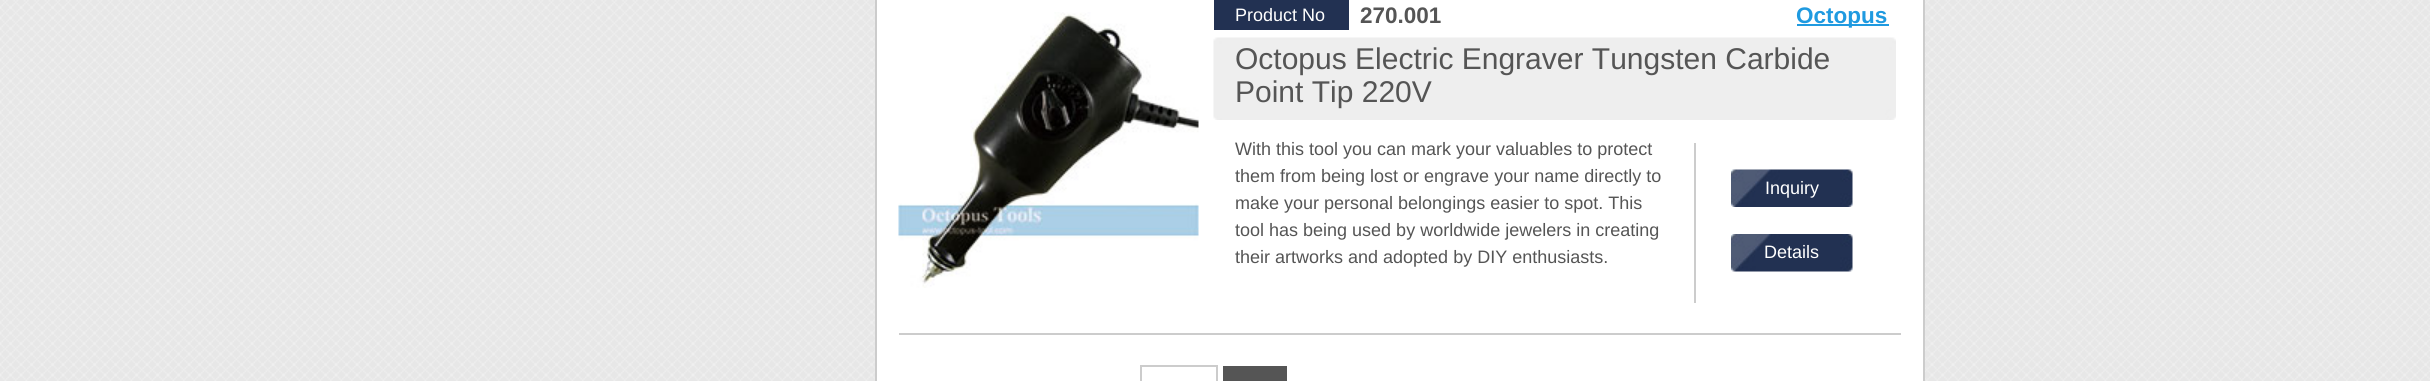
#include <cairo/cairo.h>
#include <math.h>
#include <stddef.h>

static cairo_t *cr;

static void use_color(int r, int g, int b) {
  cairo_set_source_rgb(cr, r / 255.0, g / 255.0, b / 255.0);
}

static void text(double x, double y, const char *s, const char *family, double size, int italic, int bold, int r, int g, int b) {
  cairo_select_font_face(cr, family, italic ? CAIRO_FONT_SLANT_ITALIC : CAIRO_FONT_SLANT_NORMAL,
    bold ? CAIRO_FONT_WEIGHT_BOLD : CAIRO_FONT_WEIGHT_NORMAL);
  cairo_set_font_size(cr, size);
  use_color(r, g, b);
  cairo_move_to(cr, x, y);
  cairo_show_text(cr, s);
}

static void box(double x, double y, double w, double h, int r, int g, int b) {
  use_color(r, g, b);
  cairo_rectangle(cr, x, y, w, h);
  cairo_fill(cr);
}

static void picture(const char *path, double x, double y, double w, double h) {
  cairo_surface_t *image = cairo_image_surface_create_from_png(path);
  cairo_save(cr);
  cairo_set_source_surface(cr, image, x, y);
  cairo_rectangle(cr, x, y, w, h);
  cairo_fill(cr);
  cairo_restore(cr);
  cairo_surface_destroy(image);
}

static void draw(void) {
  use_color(255, 255, 255);
  cairo_paint(cr);
  picture("img_01.png", 0, 0, 2430, 381);
  use_color(255, 255, 255);
  cairo_rectangle(cr, 876, -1, 1048, 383);
  cairo_fill_preserve(cr);
  use_color(204, 204, 204);
  cairo_stroke(cr);
  box(899, 333, 1002, 2, 204, 204, 204);
  picture("img_02.png", 898, 12, 301, 276);
  box(1214, 0, 135, 30, 34, 49, 82);
  box(1797, 24, 92, 2, 31, 154, 224);
  picture("img_03.png", 1213, 37, 683, 83);
  box(1694, 143, 2, 160, 204, 204, 204);
  picture("img_04.png", 1731, 169, 122, 38);
  picture("img_05.png", 1731, 234, 122, 38);
  cairo_rectangle(cr, 1141, 366, 76, 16);
  cairo_stroke(cr);
  box(1223, 366, 64, 15, 85, 85, 85);
  text(1235, 21, "Product No", "Liberation Sans", 18, 0, 0, 255, 255, 255);
  text(1360, 23, "270.001", "Liberation Sans", 22.5, 0, 1, 85, 85, 85);
  text(1796, 23, "Octopus", "Liberation Sans", 22.5, 0, 1, 31, 154, 224);
  text(1235, 69, "Octopus Electric Engraver Tungsten Carbide", "Liberation Sans", 30, 0, 0, 85, 85, 85);
  text(1235, 102, "Point Tip 220V", "Liberation Sans", 30, 0, 0, 85, 85, 85);
  text(1235, 155, "With this tool you can mark your valuables to protect", "Liberation Sans", 18, 0, 0, 85, 85, 85);
  text(1235, 182, "them from being lost or engrave your name directly to", "Liberation Sans", 18, 0, 0, 85, 85, 85);
  text(1235, 209, "make your personal belongings easier to spot. This", "Liberation Sans", 18, 0, 0, 85, 85, 85);
  text(1235, 236, "tool has being used by worldwide jewelers in creating", "Liberation Sans", 18, 0, 0, 85, 85, 85);
  text(1235, 263, "their artworks and adopted by DIY enthusiasts.", "Liberation Sans", 18, 0, 0, 85, 85, 85);
  text(1765, 194, "Inquiry", "Liberation Sans", 18, 0, 0, 255, 255, 255);
  text(1764, 258, "Details", "Liberation Sans", 18, 0, 0, 255, 255, 255);
}

int main(void) {
  cairo_surface_t *surface = cairo_image_surface_create(CAIRO_FORMAT_RGB24, 2430, 381);
  cr = cairo_create(surface);
  cairo_font_options_t *options = cairo_font_options_create();
  cairo_font_options_set_hint_metrics(options, CAIRO_HINT_METRICS_OFF);
  cairo_font_options_set_hint_style(options, CAIRO_HINT_STYLE_NONE);
  cairo_set_font_options(cr, options);
  cairo_set_miter_limit(cr, 4);
  draw();
  cairo_surface_write_to_png(surface, "out.png");
  cairo_font_options_destroy(options);
  cairo_destroy(cr);
  cairo_surface_destroy(surface);
  return 0;
}
